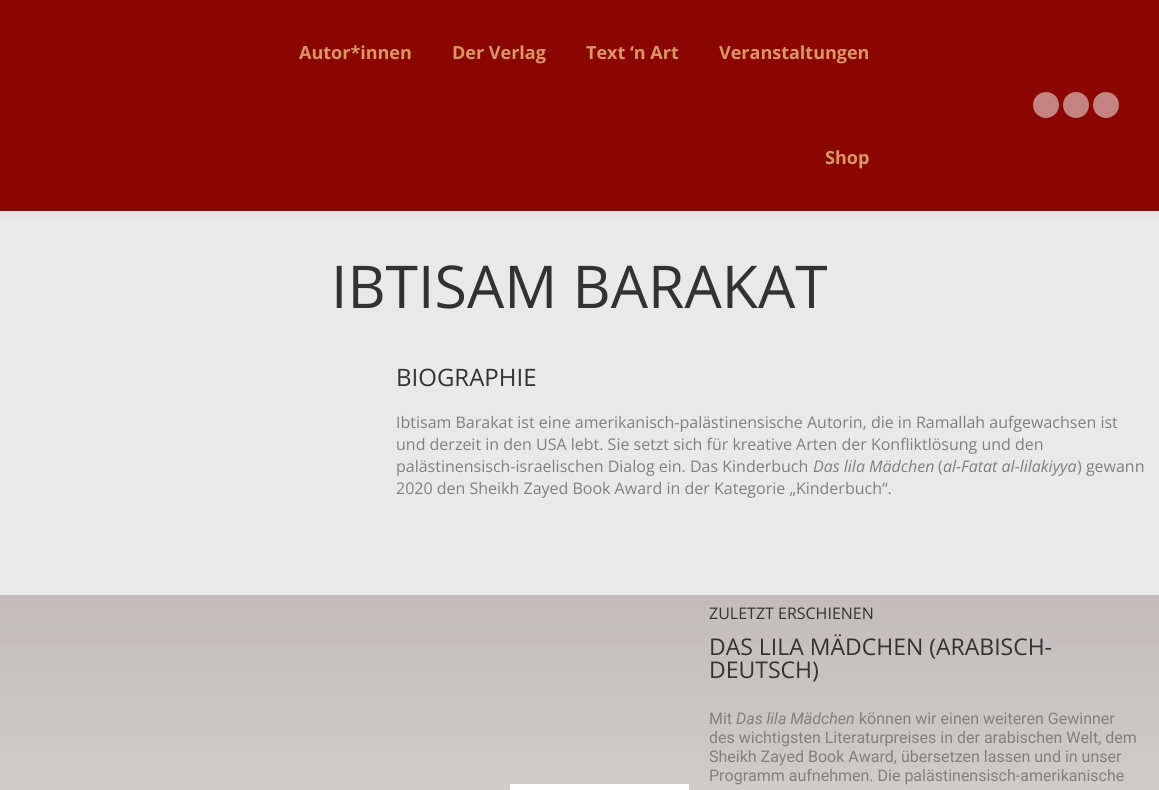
#include <cairo/cairo.h>
#include <math.h>
#include <stddef.h>

static cairo_t *cr;

static void use_color(int r, int g, int b) {
  cairo_set_source_rgb(cr, r / 255.0, g / 255.0, b / 255.0);
}

static void text(double x, double y, const char *s, const char *family, double size, int italic, int bold, int r, int g, int b) {
  cairo_select_font_face(cr, family, italic ? CAIRO_FONT_SLANT_ITALIC : CAIRO_FONT_SLANT_NORMAL,
    bold ? CAIRO_FONT_WEIGHT_BOLD : CAIRO_FONT_WEIGHT_NORMAL);
  cairo_set_font_size(cr, size);
  use_color(r, g, b);
  cairo_move_to(cr, x, y);
  cairo_show_text(cr, s);
}

static void box(double x, double y, double w, double h, int r, int g, int b) {
  use_color(r, g, b);
  cairo_rectangle(cr, x, y, w, h);
  cairo_fill(cr);
}

static void round_rect(double x, double y, double w, double h, double r) {
  cairo_new_sub_path(cr);
  cairo_arc(cr, x + w - r, y + h - r, r, 0, M_PI / 2);
  cairo_arc(cr, x + r, y + h - r, r, M_PI / 2, M_PI);
  cairo_arc(cr, x + r, y + r, r, M_PI, 1.5 * M_PI);
  cairo_arc(cr, x + w - r, y + r, r, 1.5 * M_PI, 2 * M_PI);
  cairo_close_path(cr);
}

static void shadow(double x, double y, double w, double h, double r, double blur, double alpha) {
  cairo_push_group_with_content(cr, CAIRO_CONTENT_ALPHA);
  cairo_set_operator(cr, CAIRO_OPERATOR_SOURCE);
  for (int i = 15; i >= -15 && fmin(w, h) + blur * i / 3 > 0; i -= 2) {
    double e = blur * i / 6;
    cairo_set_source_rgba(cr, 0, 0, 0, alpha * erfc((i - 1) / 8.5) / 2);
    round_rect(x - e, y - e, w + 2 * e, h + 2 * e, fmax(0, fmin(r + e + blur * .6, fmin(w, h) / 2 + e)));
    cairo_fill(cr);
  }
  cairo_pattern_t *soft = cairo_pop_group(cr);
  cairo_mask(cr, soft);
  cairo_pattern_destroy(soft);
}

static void draw(void) {
  cairo_pattern_t *gradient;
  use_color(233, 233, 233);
  cairo_paint(cr);
  use_color(0, 0, 0);
  shadow(0, 0, 1159, 211, 0, 6, 0.09);
  box(0, 0, 1159, 210, 137, 7, 0);
  box(0, 210, 1159, 1, 132, 10, 3);
  box(914, 93, 1, 25, 132, 10, 3);
  box(1017, 93, 1, 25, 132, 10, 3);
  use_color(196, 131, 128);
  cairo_arc(cr, 1046, 105, 13, 0, 2 * M_PI);
  cairo_fill(cr);
  cairo_arc(cr, 1076, 105, 13, 0, 2 * M_PI);
  cairo_fill(cr);
  cairo_arc(cr, 1106, 105, 13, 0, 2 * M_PI);
  cairo_fill(cr);
  gradient = cairo_pattern_create_linear(580, 595, 580, 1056);
  cairo_pattern_add_color_stop_rgba(gradient, 0, 0.761, 0.737, 0.737, 1);
  cairo_pattern_add_color_stop_rgba(gradient, 1, 0.882, 0.882, 0.882, 1);
  cairo_set_source(cr, gradient);
  cairo_pattern_destroy(gradient);
  cairo_rectangle(cr, 0, 595, 1159, 195);
  cairo_fill(cr);
  box(510, 784, 179, 6, 255, 255, 255);
  text(299, 59, "Autor*innen", "Open Sans", 18, 0, 1, 221, 149, 102);
  text(452, 59, "Der Verlag", "Open Sans", 18, 0, 1, 221, 149, 102);
  text(586, 59, "Text ‘n Art", "Open Sans", 18, 0, 1, 221, 149, 102);
  text(719, 59, "Veranstaltungen", "Open Sans", 18, 0, 1, 221, 149, 102);
  text(825, 164, "Shop", "Open Sans", 18, 0, 1, 221, 149, 102);
  text(331, 308, "IBTISAM BARAKAT", "Open Sans", 59, 0, 0, 50, 50, 50);
  text(396, 386, "BIOGRAPHIE", "Open Sans", 24, 0, 0, 50, 50, 50);
  text(396, 428, "Ibtisam Barakat ist eine amerikanisch-palästinensische Autorin, die in Ramallah aufgewachsen ist", "Open Sans", 16, 0, 0, 127, 127, 127);
  text(396, 450, "und derzeit in den USA lebt. Sie setzt sich für kreative Arten der Konfliktlösung und den", "Open Sans", 16, 0, 0, 127, 127, 127);
  text(396, 472, "palästinensisch-israelischen Dialog ein. Das Kinderbuch", "Open Sans", 16, 0, 0, 127, 127, 127);
  text(813, 472, "Das lila Mädchen", "Open Sans", 16, 1, 0, 127, 127, 127);
  text(938, 472, "(", "Open Sans", 16, 0, 0, 127, 127, 127);
  text(943, 472, "al-Fatat al-lilakiyya", "Open Sans", 16, 1, 0, 127, 127, 127);
  text(1077, 472, ") gewann", "Open Sans", 16, 0, 0, 127, 127, 127);
  text(396, 494, "2020 den Sheikh Zayed Book Award in der Kategorie „Kinderbuch“.", "Open Sans", 16, 0, 0, 127, 127, 127);
  text(709, 619, "ZULETZT ERSCHIENEN", "Open Sans", 16, 0, 0, 50, 50, 50);
  text(709, 655, "DAS LILA MÄDCHEN (ARABISCH-", "Open Sans", 23, 0, 0, 50, 50, 50);
  text(709, 678, "DEUTSCH)", "Open Sans", 23, 0, 0, 50, 50, 50);
  text(709, 724, "Mit", "Roboto", 16, 0, 0, 127, 127, 127);
  text(736, 724, "Das lila Mädchen", "Roboto", 16, 1, 0, 127, 127, 127);
  text(859, 724, "können wir einen weiteren Gewinner", "Roboto", 16, 0, 0, 127, 127, 127);
  text(709, 743, "des wichtigsten Literaturpreises in der arabischen Welt, dem", "Roboto", 16, 0, 0, 127, 127, 127);
  text(709, 762, "Sheikh Zayed Book Award, übersetzen lassen und in unser", "Roboto", 16, 0, 0, 127, 127, 127);
  text(709, 781, "Programm aufnehmen. Die palästinensisch-amerikanische", "Roboto", 16, 0, 0, 127, 127, 127);
}

int main(void) {
  cairo_surface_t *surface = cairo_image_surface_create(CAIRO_FORMAT_RGB24, 1159, 790);
  cr = cairo_create(surface);
  cairo_font_options_t *options = cairo_font_options_create();
  cairo_font_options_set_hint_metrics(options, CAIRO_HINT_METRICS_OFF);
  cairo_font_options_set_hint_style(options, CAIRO_HINT_STYLE_NONE);
  cairo_set_font_options(cr, options);
  cairo_set_miter_limit(cr, 4);
  draw();
  cairo_surface_write_to_png(surface, "out.png");
  cairo_font_options_destroy(options);
  cairo_destroy(cr);
  cairo_surface_destroy(surface);
  return 0;
}
